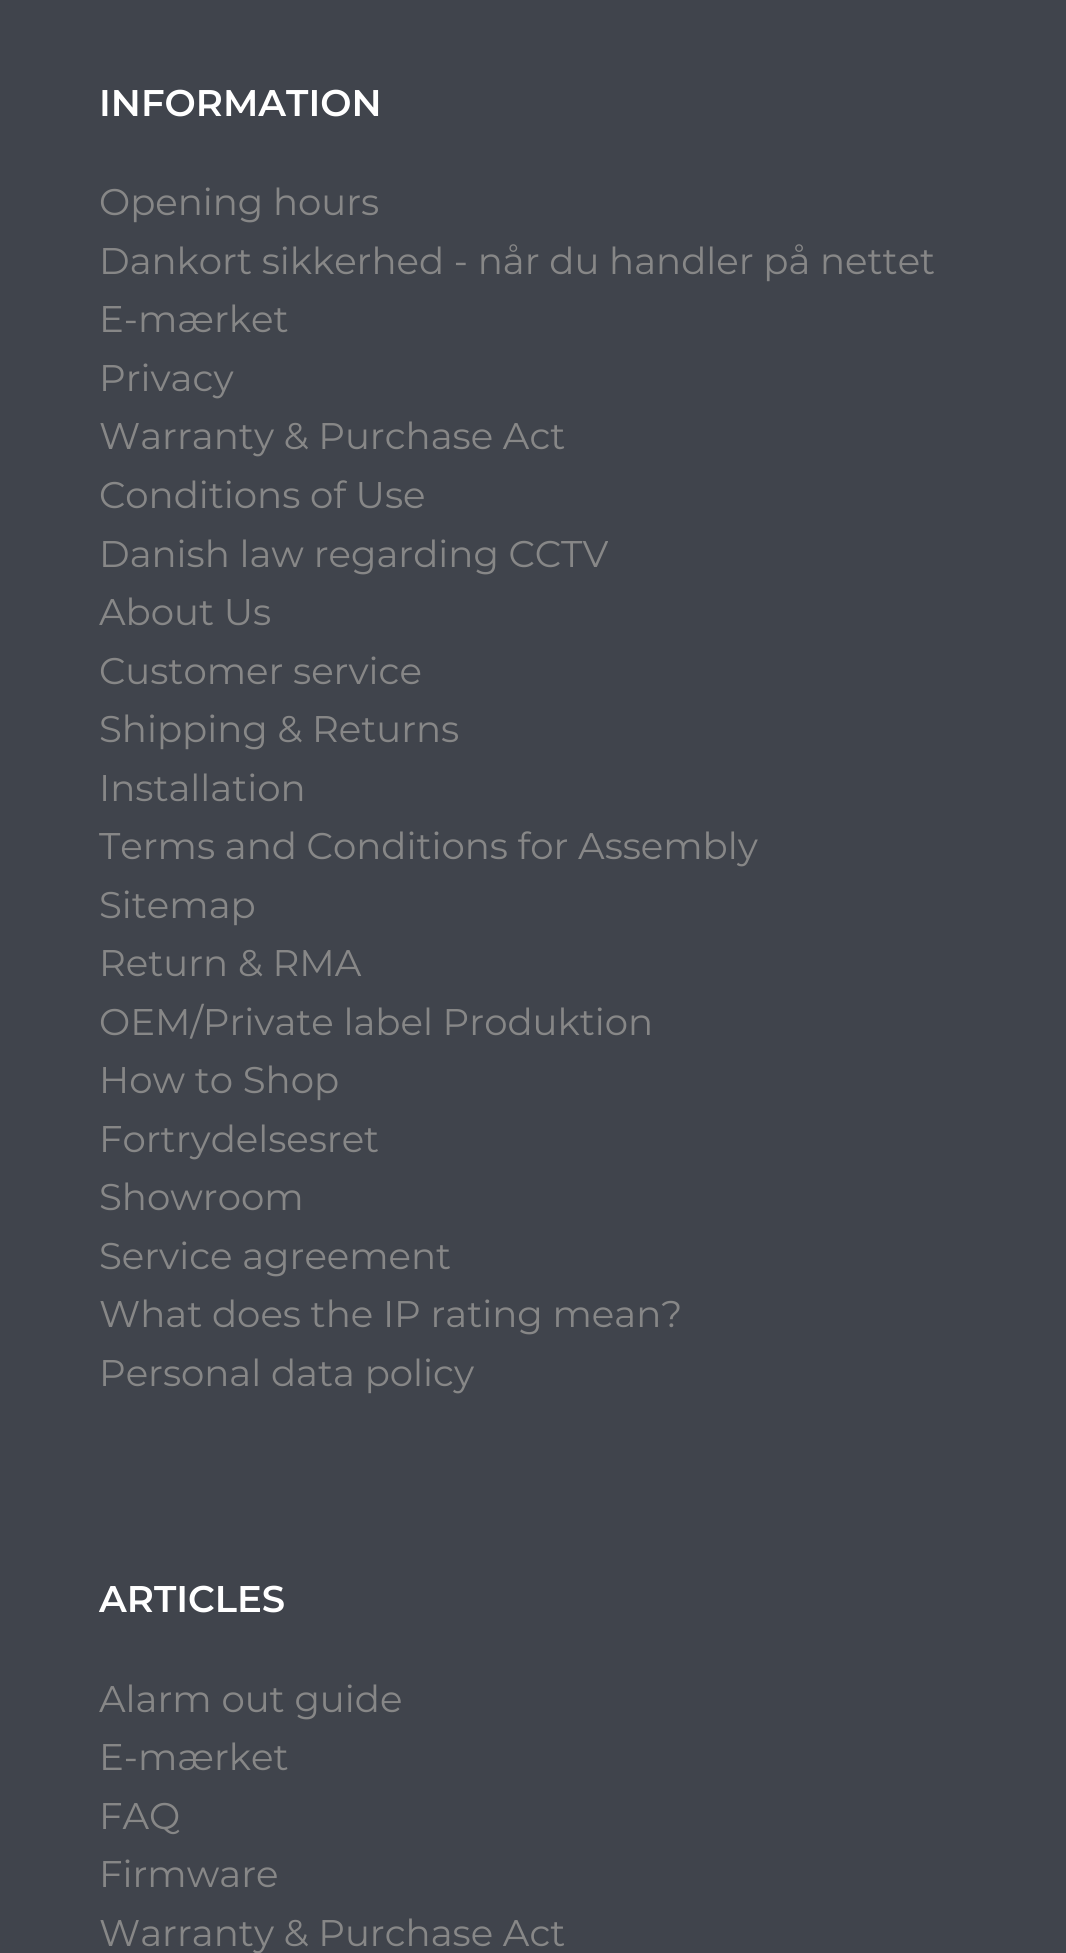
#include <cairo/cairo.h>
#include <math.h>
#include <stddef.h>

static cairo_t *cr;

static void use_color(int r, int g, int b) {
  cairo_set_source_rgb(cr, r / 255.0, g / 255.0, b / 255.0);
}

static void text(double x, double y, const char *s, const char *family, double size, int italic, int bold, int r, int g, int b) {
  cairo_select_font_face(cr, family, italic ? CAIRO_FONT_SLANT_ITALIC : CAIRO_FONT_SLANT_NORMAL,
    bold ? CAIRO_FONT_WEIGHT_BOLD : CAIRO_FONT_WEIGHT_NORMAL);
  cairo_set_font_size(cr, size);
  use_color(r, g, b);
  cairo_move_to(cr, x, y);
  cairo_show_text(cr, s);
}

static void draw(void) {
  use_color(64, 68, 76);
  cairo_paint(cr);
  text(99, 116, "INFORMATION", "Montserrat SemiBold", 37.1, 0, 0, 255, 255, 255);
  text(99, 215, "Opening hours", "Montserrat", 37.1, 0, 0, 135, 135, 135);
  text(99, 274, "Dankort sikkerhed - når du handler på nettet", "Montserrat", 37.1, 0, 0, 135, 135, 135);
  text(99, 332, "E-mærket", "Montserrat", 37.1, 0, 0, 135, 135, 135);
  text(99, 391, "Privacy", "Montserrat", 37.1, 0, 0, 135, 135, 135);
  text(99, 449, "Warranty & Purchase Act", "Montserrat", 37.1, 0, 0, 135, 135, 135);
  text(99, 508, "Conditions of Use", "Montserrat", 37.1, 0, 0, 135, 135, 135);
  text(99, 567, "Danish law regarding CCTV", "Montserrat", 37.1, 0, 0, 135, 135, 135);
  text(99, 625, "About Us", "Montserrat", 37.1, 0, 0, 135, 135, 135);
  text(99, 684, "Customer service", "Montserrat", 37.1, 0, 0, 135, 135, 135);
  text(99, 742, "Shipping & Returns", "Montserrat", 37.1, 0, 0, 135, 135, 135);
  text(99, 801, "Installation", "Montserrat", 37.1, 0, 0, 135, 135, 135);
  text(99, 859, "Terms and Conditions for Assembly", "Montserrat", 37.1, 0, 0, 135, 135, 135);
  text(99, 918, "Sitemap", "Montserrat", 37.1, 0, 0, 135, 135, 135);
  text(99, 976, "Return & RMA", "Montserrat", 37.1, 0, 0, 135, 135, 135);
  text(99, 1035, "OEM/Private label Produktion", "Montserrat", 37.1, 0, 0, 135, 135, 135);
  text(99, 1093, "How to Shop", "Montserrat", 37.1, 0, 0, 135, 135, 135);
  text(99, 1152, "Fortrydelsesret", "Montserrat", 37.1, 0, 0, 135, 135, 135);
  text(99, 1210, "Showroom", "Montserrat", 37.1, 0, 0, 135, 135, 135);
  text(99, 1269, "Service agreement", "Montserrat", 37.1, 0, 0, 135, 135, 135);
  text(99, 1327, "What does the IP rating mean?", "Montserrat", 37.1, 0, 0, 135, 135, 135);
  text(99, 1386, "Personal data policy", "Montserrat", 37.1, 0, 0, 135, 135, 135);
  text(99, 1612, "ARTICLES", "Montserrat SemiBold", 37.1, 0, 0, 255, 255, 255);
  text(99, 1712, "Alarm out guide", "Montserrat", 37.1, 0, 0, 135, 135, 135);
  text(99, 1770, "E-mærket", "Montserrat", 37.1, 0, 0, 135, 135, 135);
  text(99, 1829, "FAQ", "Montserrat", 37.1, 0, 0, 135, 135, 135);
  text(99, 1887, "Firmware", "Montserrat", 37.1, 0, 0, 135, 135, 135);
  text(99, 1946, "Warranty & Purchase Act", "Montserrat", 37.1, 0, 0, 135, 135, 135);
}

int main(void) {
  cairo_surface_t *surface = cairo_image_surface_create(CAIRO_FORMAT_RGB24, 1066, 1953);
  cr = cairo_create(surface);
  cairo_font_options_t *options = cairo_font_options_create();
  cairo_font_options_set_hint_metrics(options, CAIRO_HINT_METRICS_OFF);
  cairo_font_options_set_hint_style(options, CAIRO_HINT_STYLE_NONE);
  cairo_set_font_options(cr, options);
  cairo_set_miter_limit(cr, 4);
  draw();
  cairo_surface_write_to_png(surface, "out.png");
  cairo_font_options_destroy(options);
  cairo_destroy(cr);
  cairo_surface_destroy(surface);
  return 0;
}
